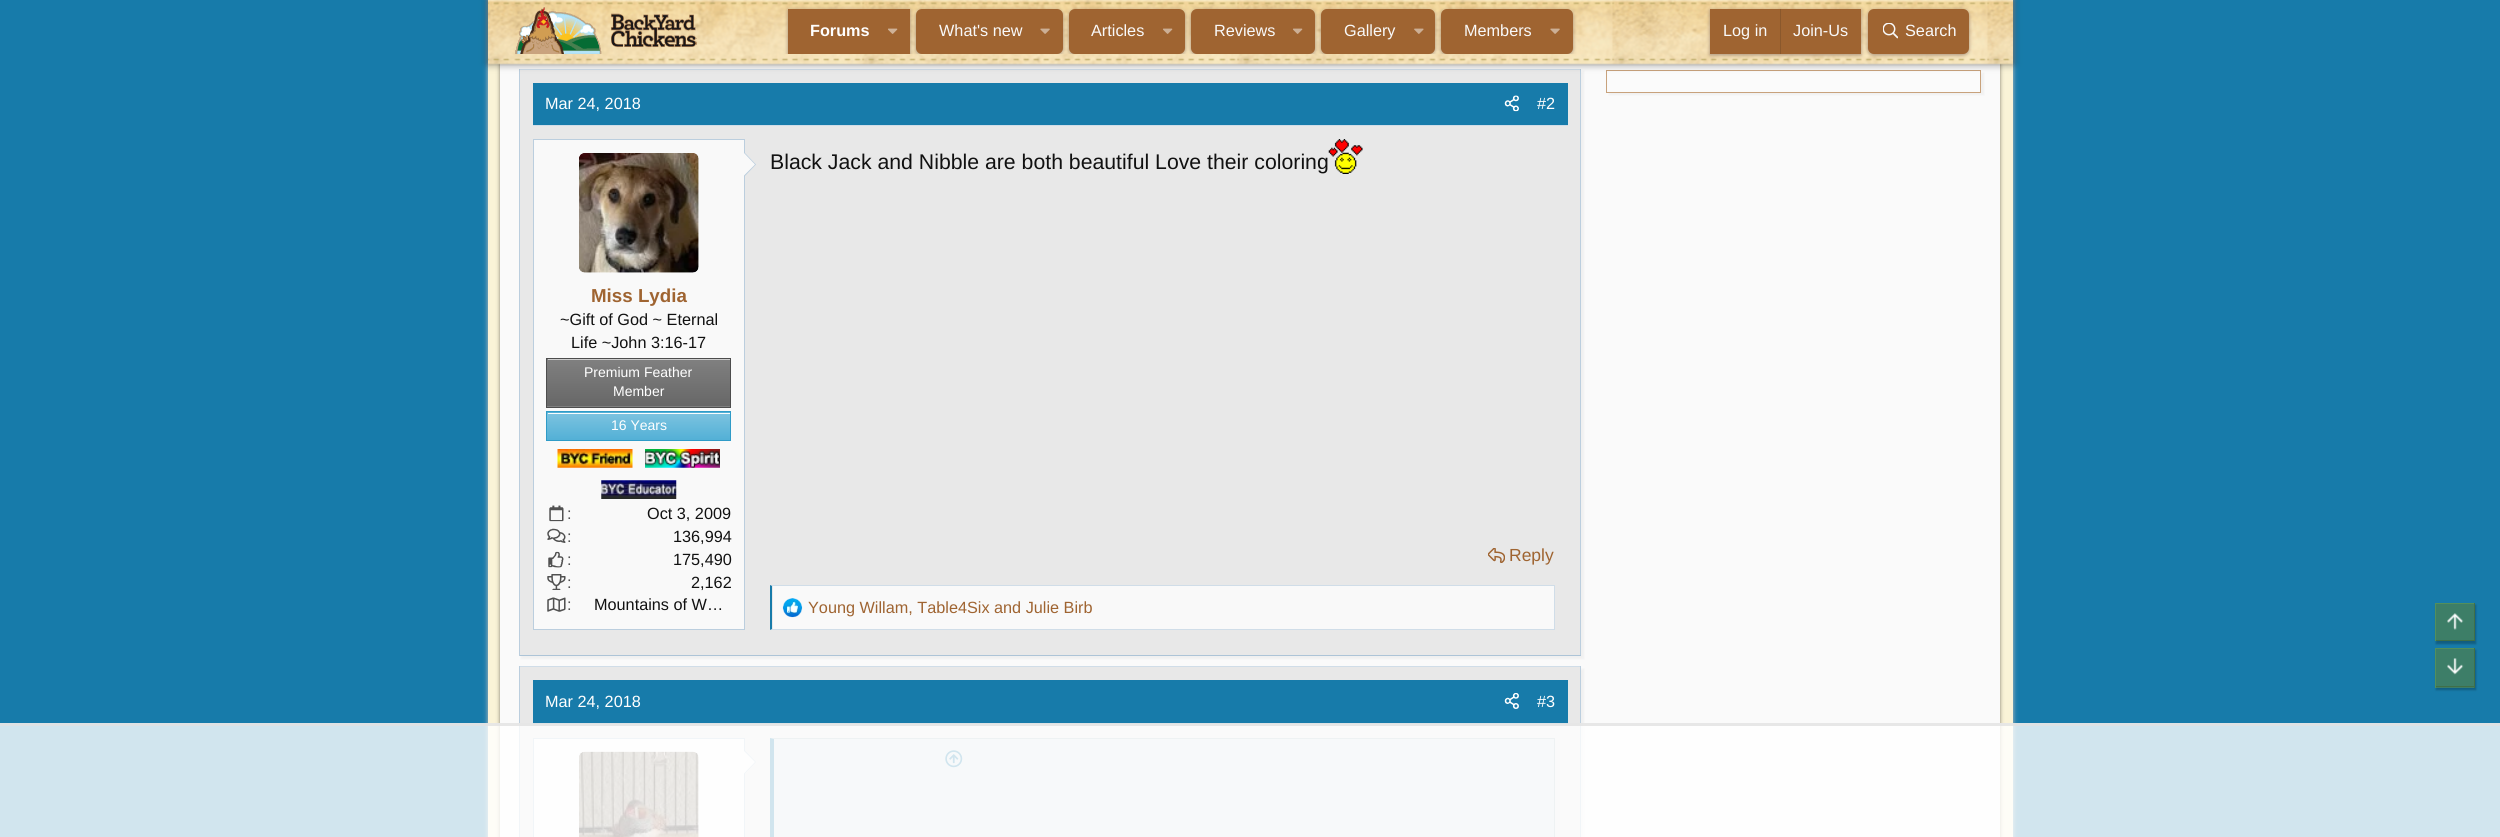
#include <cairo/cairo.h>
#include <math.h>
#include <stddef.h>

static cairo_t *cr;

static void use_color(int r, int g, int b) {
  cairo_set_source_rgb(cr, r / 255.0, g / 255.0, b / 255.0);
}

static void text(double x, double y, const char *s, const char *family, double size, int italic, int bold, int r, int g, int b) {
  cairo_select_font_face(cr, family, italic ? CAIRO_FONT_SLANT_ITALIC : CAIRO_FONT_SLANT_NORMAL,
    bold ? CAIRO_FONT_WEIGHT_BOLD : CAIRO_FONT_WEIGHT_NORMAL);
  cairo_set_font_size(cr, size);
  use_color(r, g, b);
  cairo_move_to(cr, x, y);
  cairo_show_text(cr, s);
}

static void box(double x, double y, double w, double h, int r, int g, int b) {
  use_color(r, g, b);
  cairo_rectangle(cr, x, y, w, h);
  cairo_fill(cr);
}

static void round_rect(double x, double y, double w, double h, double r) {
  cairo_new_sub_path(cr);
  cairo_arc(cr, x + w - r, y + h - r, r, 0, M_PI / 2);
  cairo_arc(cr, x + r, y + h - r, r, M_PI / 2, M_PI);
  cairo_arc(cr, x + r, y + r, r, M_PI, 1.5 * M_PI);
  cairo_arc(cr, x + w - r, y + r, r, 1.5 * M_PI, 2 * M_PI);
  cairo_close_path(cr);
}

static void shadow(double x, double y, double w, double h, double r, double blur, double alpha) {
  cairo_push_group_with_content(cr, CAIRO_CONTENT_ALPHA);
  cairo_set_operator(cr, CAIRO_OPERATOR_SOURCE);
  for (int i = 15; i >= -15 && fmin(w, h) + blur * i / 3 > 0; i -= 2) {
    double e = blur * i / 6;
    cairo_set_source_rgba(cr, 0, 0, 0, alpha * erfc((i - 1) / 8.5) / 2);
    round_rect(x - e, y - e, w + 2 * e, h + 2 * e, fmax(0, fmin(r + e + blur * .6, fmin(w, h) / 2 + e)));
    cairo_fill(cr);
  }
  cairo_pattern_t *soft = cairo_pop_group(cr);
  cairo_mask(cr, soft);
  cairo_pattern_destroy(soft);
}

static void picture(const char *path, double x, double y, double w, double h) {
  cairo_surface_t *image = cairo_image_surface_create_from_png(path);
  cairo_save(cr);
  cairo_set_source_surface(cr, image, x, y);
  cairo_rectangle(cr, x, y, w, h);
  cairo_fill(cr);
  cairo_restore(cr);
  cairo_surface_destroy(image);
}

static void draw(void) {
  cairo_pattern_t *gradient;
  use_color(23, 123, 170);
  cairo_paint(cr);
  use_color(194, 194, 194);
  shadow(488, -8, 1525, 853, 0, 2.5, 1);
  box(488, 63, 1525, 774, 250, 243, 215);
  use_color(0, 0, 0);
  shadow(500, -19, 1500, 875, 13, 2, 0.5);
  box(500, 63, 1500, 774, 250, 250, 250);
  use_color(0, 0, 0);
  shadow(1609, 73, 375, 22, 0, 1, 0.04);
  box(1608, 72, 372, 20, 251, 251, 251);
  cairo_rectangle(cr, 1606.5, 70.5, 374, 22);
  use_color(200, 162, 124);
  cairo_set_line_width(cr, 1);
  cairo_stroke(cr);
  use_color(0, 0, 0);
  shadow(521, 71, 1063, 588, 0, 1, 0.04);
  box(520, 70, 1060, 585, 232, 232, 232);
  box(519, 69, 1062, 1, 208, 221, 232);
  box(1580, 69, 1, 587, 187, 206, 222);
  box(519, 655, 1062, 1, 173, 196, 215);
  box(519, 69, 1, 587, 187, 206, 222);
  use_color(0, 0, 0);
  shadow(488, 0, 1525, 64, 0, 4, 0.5);
  picture("img_01.png", 488, 0, 1525, 65);
  picture("img_02.png", 515, 7, 182, 47);
  cairo_save(cr);
  cairo_rectangle(cr, 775, 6, 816, 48);
  cairo_clip(cr);
  use_color(165, 141, 120);
  shadow(788, 10, 122, 45, 0, 2, 1);
  cairo_restore(cr);
  box(788, 9, 122, 45, 159, 100, 49);
  picture("img_03.png", 888, 28, 10, 6);
  cairo_save(cr);
  cairo_rectangle(cr, 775, 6, 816, 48);
  cairo_clip(cr);
  use_color(165, 141, 120);
  shadow(916, 10, 147, 45, 6, 2, 1);
  cairo_restore(cr);
  round_rect(916, 9, 147, 45, 6);
  cairo_fill(cr);
  picture("img_04.png", 1040, 28, 10, 6);
  cairo_save(cr);
  cairo_rectangle(cr, 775, 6, 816, 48);
  cairo_clip(cr);
  use_color(165, 141, 120);
  shadow(1069, 10, 116, 45, 6, 2, 1);
  cairo_restore(cr);
  round_rect(1069, 9, 116, 45, 6);
  cairo_fill(cr);
  picture("img_05.png", 1163, 28, 10, 6);
  cairo_save(cr);
  cairo_rectangle(cr, 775, 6, 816, 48);
  cairo_clip(cr);
  use_color(165, 141, 120);
  shadow(1191, 10, 124, 45, 6, 2, 1);
  cairo_restore(cr);
  round_rect(1191, 9, 124, 45, 6);
  cairo_fill(cr);
  picture("img_05.png", 1293, 28, 10, 6);
  cairo_save(cr);
  cairo_rectangle(cr, 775, 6, 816, 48);
  cairo_clip(cr);
  use_color(165, 141, 120);
  shadow(1321, 10, 114, 45, 6, 2, 1);
  cairo_restore(cr);
  round_rect(1321, 9, 114, 45, 6);
  cairo_fill(cr);
  picture("img_06.png", 1414, 28, 10, 6);
  cairo_save(cr);
  cairo_rectangle(cr, 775, 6, 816, 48);
  cairo_clip(cr);
  use_color(165, 141, 120);
  shadow(1441, 10, 132, 45, 6, 2, 1);
  cairo_restore(cr);
  round_rect(1441, 9, 132, 45, 6);
  cairo_fill(cr);
  picture("img_04.png", 1550, 28, 10, 6);
  use_color(165, 141, 120);
  shadow(1710, 10, 151, 45, 0, 2, 1);
  box(1710, 9, 151, 45, 159, 100, 49);
  box(1780, 9, 1, 45, 138, 88, 44);
  use_color(165, 141, 120);
  shadow(1868, 10, 101, 45, 6, 2, 1);
  use_color(159, 100, 49);
  round_rect(1868, 9, 101, 45, 6);
  cairo_fill(cr);
  picture("img_07.png", 1883, 23, 15, 16);
  box(533, 83, 1035, 42, 23, 123, 170);
  box(533, 125, 1035, 1, 208, 221, 232);
  picture("img_08.png", 1504, 95, 15, 17);
  use_color(249, 249, 249);
  cairo_rectangle(cr, 533.5, 139.5, 211, 490);
  cairo_fill_preserve(cr);
  use_color(187, 206, 222);
  cairo_stroke(cr);
  picture("img_09.png", 579, 153, 120, 120);
  cairo_new_path(cr);
  cairo_move_to(cr, 744, 177);
  cairo_line_to(cr, 744, 152);
  cairo_line_to(cr, 756, 164.5);
  cairo_close_path(cr);
  cairo_fill(cr);
  use_color(249, 249, 249);
  cairo_new_path(cr);
  cairo_move_to(cr, 744, 175.5);
  cairo_line_to(cr, 744, 153);
  cairo_line_to(cr, 755, 164.5);
  cairo_close_path(cr);
  cairo_fill(cr);
  gradient = cairo_pattern_create_linear(639, 359, 639, 406);
  cairo_pattern_add_color_stop_rgba(gradient, 0, 0.502, 0.502, 0.502, 1);
  cairo_pattern_add_color_stop_rgba(gradient, 1, 0.404, 0.404, 0.404, 1);
  cairo_set_source(cr, gradient);
  cairo_pattern_destroy(gradient);
  cairo_rectangle(cr, 547, 359, 183, 47);
  cairo_fill(cr);
  gradient = cairo_pattern_create_linear(639, 406, 639, 454);
  cairo_pattern_add_color_stop_rgba(gradient, 0, 0.502, 0.502, 0.502, 1);
  cairo_pattern_add_color_stop_rgba(gradient, 1, 0.404, 0.404, 0.404, 1);
  cairo_set_source(cr, gradient);
  cairo_pattern_destroy(gradient);
  cairo_rectangle(cr, 546, 406, 185, 1);
  cairo_fill(cr);
  box(548, 359, 182, 1, 205, 205, 205);
  cairo_rectangle(cr, 546.5, 358.5, 184, 49);
  use_color(77, 77, 77);
  cairo_stroke(cr);
  gradient = cairo_pattern_create_linear(639, 385, 639, 413);
  cairo_pattern_add_color_stop_rgba(gradient, 0, 0.486, 0.765, 0.878, 1);
  cairo_pattern_add_color_stop_rgba(gradient, 1, 0.325, 0.69, 0.839, 1);
  cairo_set_source(cr, gradient);
  cairo_pattern_destroy(gradient);
  cairo_rectangle(cr, 546, 412, 185, 1);
  cairo_fill(cr);
  gradient = cairo_pattern_create_linear(639, 413, 639, 440);
  cairo_pattern_add_color_stop_rgba(gradient, 0, 0.486, 0.765, 0.878, 1);
  cairo_pattern_add_color_stop_rgba(gradient, 1, 0.325, 0.69, 0.839, 1);
  cairo_set_source(cr, gradient);
  cairo_pattern_destroy(gradient);
  cairo_rectangle(cr, 547, 413, 183, 27);
  cairo_fill(cr);
  box(548, 413, 182, 1, 248, 252, 253);
  cairo_rectangle(cr, 546.5, 411.5, 184, 29);
  use_color(47, 155, 199);
  cairo_stroke(cr);
  picture("img_10.png", 557, 449, 76, 19);
  picture("img_11.png", 645, 449, 75, 19);
  picture("img_12.png", 601, 480, 76, 19);
  picture("img_13.png", 549, 505, 15, 17);
  picture("img_14.png", 547, 528, 19, 15);
  picture("img_15.png", 548, 551, 16, 17);
  picture("img_16.png", 547, 574, 19, 16);
  picture("img_17.png", 547, 597, 19, 15);
  picture("img_18.png", 1328, 139, 35, 35);
  picture("img_19.png", 1488, 548, 17, 15);
  box(773, 586, 781, 43, 249, 249, 249);
  use_color(208, 221, 232);
  cairo_new_path(cr);
  cairo_move_to(cr, 770, 585);
  cairo_line_to(cr, 1555, 585);
  cairo_line_to(cr, 1554, 586);
  cairo_line_to(cr, 772, 586);
  cairo_close_path(cr);
  cairo_fill(cr);
  box(1554, 585, 1, 45, 208, 221, 232);
  cairo_new_path(cr);
  cairo_move_to(cr, 1555, 630);
  cairo_line_to(cr, 770, 630);
  cairo_line_to(cr, 772, 629);
  cairo_line_to(cr, 1554, 629);
  cairo_close_path(cr);
  cairo_fill(cr);
  use_color(23, 123, 170);
  cairo_new_path(cr);
  cairo_move_to(cr, 770, 630);
  cairo_line_to(cr, 770, 585);
  cairo_line_to(cr, 772, 586);
  cairo_line_to(cr, 772, 629);
  cairo_close_path(cr);
  cairo_fill(cr);
  picture("img_20.png", 782, 598, 21, 20);
  use_color(0, 0, 0);
  shadow(521, 669, 1063, 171, 0, 1, 0.04);
  box(520, 667, 1060, 170, 232, 232, 232);
  box(519, 666, 1062, 1, 208, 221, 232);
  box(1580, 666, 1, 171, 187, 206, 222);
  box(519, 666, 1, 171, 187, 206, 222);
  box(533, 680, 1035, 44, 23, 123, 170);
  box(533, 724, 1035, 1, 208, 221, 232);
  picture("img_21.png", 1504, 693, 15, 16);
  use_color(249, 249, 249);
  cairo_rectangle(cr, 533.5, 738.5, 211, 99);
  cairo_fill_preserve(cr);
  use_color(187, 206, 222);
  cairo_stroke(cr);
  picture("img_22.png", 579, 751, 120, 86);
  cairo_new_path(cr);
  cairo_move_to(cr, 744, 774.5);
  cairo_line_to(cr, 744, 749.5);
  cairo_line_to(cr, 756, 762);
  cairo_close_path(cr);
  cairo_fill(cr);
  use_color(249, 249, 249);
  cairo_new_path(cr);
  cairo_move_to(cr, 744, 773.5);
  cairo_line_to(cr, 744, 751);
  cairo_line_to(cr, 755, 762);
  cairo_close_path(cr);
  cairo_fill(cr);
  box(774, 739, 780, 98, 217, 227, 232);
  use_color(171, 189, 197);
  cairo_new_path(cr);
  cairo_move_to(cr, 770, 738);
  cairo_line_to(cr, 1555, 738);
  cairo_line_to(cr, 1554, 739);
  cairo_line_to(cr, 774, 739);
  cairo_close_path(cr);
  cairo_fill(cr);
  box(1554, 738, 1, 99, 171, 189, 197);
  use_color(23, 123, 170);
  cairo_new_path(cr);
  cairo_move_to(cr, 770, 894);
  cairo_line_to(cr, 770, 738);
  cairo_line_to(cr, 774, 739);
  cairo_line_to(cr, 774, 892);
  cairo_close_path(cr);
  cairo_fill(cr);
  picture("img_23.png", 945, 750, 18, 18);
  use_color(0, 0, 0);
  shadow(2436, 605, 40, 39, 0, 1, 0.25);
  box(2436, 604, 38, 36, 61, 126, 103);
  box(2435, 603, 40, 1, 83, 143, 91);
  box(2474, 603, 1, 38, 65, 111, 71);
  box(2435, 640, 40, 1, 65, 111, 71);
  box(2435, 603, 1, 38, 83, 143, 91);
  picture("img_24.png", 2447, 613, 17, 17);
  cairo_save(cr);
  cairo_set_fill_rule(cr, CAIRO_FILL_RULE_EVEN_ODD);
  cairo_new_path(cr);
  cairo_move_to(cr, 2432, 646);
  cairo_line_to(cr, 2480, 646);
  cairo_line_to(cr, 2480, 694);
  cairo_line_to(cr, 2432, 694);
  cairo_close_path(cr);
  cairo_move_to(cr, 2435, 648);
  cairo_line_to(cr, 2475, 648);
  cairo_line_to(cr, 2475, 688);
  cairo_line_to(cr, 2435, 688);
  cairo_close_path(cr);
  cairo_clip(cr);
  use_color(0, 0, 0);
  shadow(2436, 650, 40, 40, 0, 1, 0.25);
  cairo_restore(cr);
  cairo_set_source_rgba(cr, 0.29, 0.498, 0.318, 0.75);
  cairo_rectangle(cr, 2436, 649, 38, 39);
  cairo_fill(cr);
  box(2435, 648, 40, 1, 83, 143, 91);
  box(2474, 648, 1, 40, 65, 111, 71);
  box(2435, 686, 40, 1, 65, 111, 71);
  box(2435, 648, 1, 40, 83, 143, 91);
  picture("img_25.png", 2447, 658, 17, 17);
  cairo_set_source_rgba(cr, 1, 1, 1, 0.8);
  cairo_rectangle(cr, 0, 723, 2500, 114);
  cairo_fill(cr);
  cairo_set_source_rgba(cr, 0.882, 0.882, 0.882, 0.8);
  cairo_rectangle(cr, 0, 723, 2500, 3);
  cairo_fill(cr);
  text(810, 36, "Forums", "Liberation Sans", 16.25, 0, 1, 255, 255, 255);
  text(939, 36, "What's new", "Liberation Sans", 16.25, 0, 0, 249, 249, 249);
  text(1091, 36, "Articles", "Liberation Sans", 16.25, 0, 0, 249, 249, 249);
  text(1214, 36, "Reviews", "Liberation Sans", 16.25, 0, 0, 249, 249, 249);
  text(1344, 36, "Gallery", "Liberation Sans", 16.25, 0, 0, 249, 249, 249);
  text(1464, 36, "Members", "Liberation Sans", 16.25, 0, 0, 249, 249, 249);
  text(1723, 36, "Log in", "Liberation Sans", 16.25, 0, 0, 249, 249, 249);
  text(1793, 36, "Join-Us", "Liberation Sans", 16.25, 0, 0, 249, 249, 249);
  text(1905, 36, "Search", "Liberation Sans", 16.25, 0, 0, 249, 249, 249);
  text(545, 109, "Mar 24, 2018", "Liberation Sans", 16.25, 0, 0, 255, 255, 255);
  text(1537, 109, "#2", "Liberation Sans", 16.25, 0, 0, 255, 255, 255);
  text(591, 302, "Miss Lydia", "Liberation Sans", 18.75, 0, 1, 159, 100, 49);
  text(560, 325, "~Gift of God ~ Eternal", "Liberation Sans", 16.25, 0, 0, 17, 17, 17);
  text(571, 348, "Life ~John 3:16-17", "Liberation Sans", 16.25, 0, 0, 17, 17, 17);
  text(584, 377, "Premium Feather", "Liberation Sans", 14, 0, 0, 255, 255, 255);
  text(613, 396, "Member", "Liberation Sans", 14, 0, 0, 255, 255, 255);
  text(611, 430, "16 Years", "Liberation Sans", 14, 0, 0, 255, 255, 255);
  text(567, 519, ":", "Liberation Sans", 16.25, 0, 0, 81, 81, 81);
  text(647, 519, "Oct 3, 2009", "Liberation Sans", 16.25, 0, 0, 17, 17, 17);
  text(567, 542, ":", "Liberation Sans", 16.25, 0, 0, 81, 81, 81);
  text(673, 542, "136,994", "Liberation Sans", 16.25, 0, 0, 17, 17, 17);
  text(567, 565, ":", "Liberation Sans", 16.25, 0, 0, 81, 81, 81);
  text(673, 565, "175,490", "Liberation Sans", 16.25, 0, 0, 17, 17, 17);
  text(567, 588, ":", "Liberation Sans", 16.25, 0, 0, 81, 81, 81);
  text(691, 588, "2,162", "Liberation Sans", 16.25, 0, 0, 17, 17, 17);
  text(567, 610, ":", "Liberation Sans", 16.25, 0, 0, 81, 81, 81);
  text(594, 610, "Mountains of W…", "Liberation Sans", 16.25, 0, 0, 17, 17, 17);
  text(770, 169, "Black Jack and Nibble are both beautiful Love their coloring", "Liberation Sans", 21.25, 0, 0, 17, 17, 17);
  text(1509, 561, "Reply", "Liberation Sans", 17.5, 0, 0, 159, 100, 49);
  text(808, 613, "Young Willam, Table4Six and Julie Birb", "Liberation Sans", 16.25, 0, 0, 159, 100, 49);
  text(545, 707, "Mar 24, 2018", "Liberation Sans", 16.25, 0, 0, 255, 255, 255);
  text(1537, 707, "#3", "Liberation Sans", 16.25, 0, 0, 255, 255, 255);
}

int main(void) {
  cairo_surface_t *surface = cairo_image_surface_create(CAIRO_FORMAT_RGB24, 2500, 837);
  cr = cairo_create(surface);
  cairo_font_options_t *options = cairo_font_options_create();
  cairo_font_options_set_hint_metrics(options, CAIRO_HINT_METRICS_OFF);
  cairo_font_options_set_hint_style(options, CAIRO_HINT_STYLE_NONE);
  cairo_set_font_options(cr, options);
  cairo_set_miter_limit(cr, 4);
  draw();
  cairo_surface_write_to_png(surface, "out.png");
  cairo_font_options_destroy(options);
  cairo_destroy(cr);
  cairo_surface_destroy(surface);
  return 0;
}
